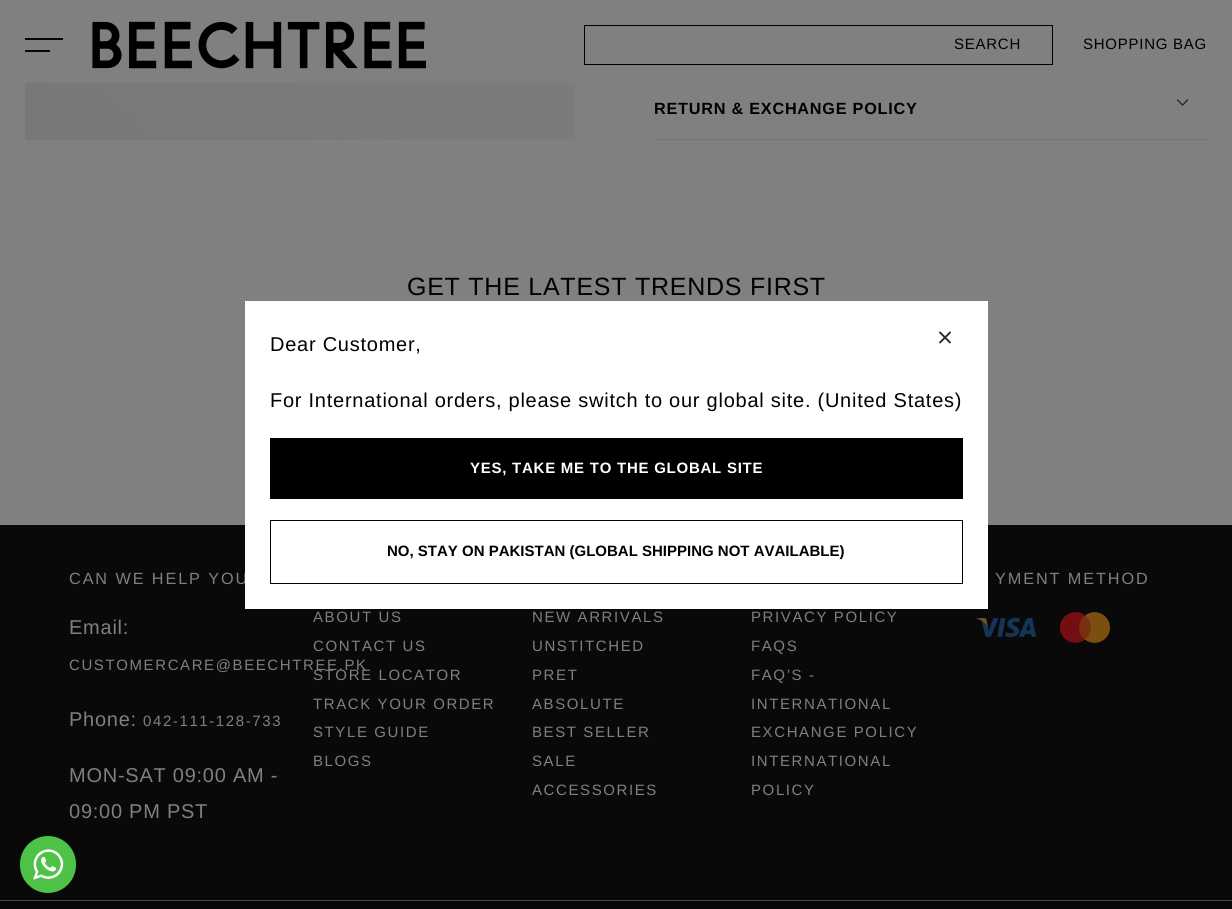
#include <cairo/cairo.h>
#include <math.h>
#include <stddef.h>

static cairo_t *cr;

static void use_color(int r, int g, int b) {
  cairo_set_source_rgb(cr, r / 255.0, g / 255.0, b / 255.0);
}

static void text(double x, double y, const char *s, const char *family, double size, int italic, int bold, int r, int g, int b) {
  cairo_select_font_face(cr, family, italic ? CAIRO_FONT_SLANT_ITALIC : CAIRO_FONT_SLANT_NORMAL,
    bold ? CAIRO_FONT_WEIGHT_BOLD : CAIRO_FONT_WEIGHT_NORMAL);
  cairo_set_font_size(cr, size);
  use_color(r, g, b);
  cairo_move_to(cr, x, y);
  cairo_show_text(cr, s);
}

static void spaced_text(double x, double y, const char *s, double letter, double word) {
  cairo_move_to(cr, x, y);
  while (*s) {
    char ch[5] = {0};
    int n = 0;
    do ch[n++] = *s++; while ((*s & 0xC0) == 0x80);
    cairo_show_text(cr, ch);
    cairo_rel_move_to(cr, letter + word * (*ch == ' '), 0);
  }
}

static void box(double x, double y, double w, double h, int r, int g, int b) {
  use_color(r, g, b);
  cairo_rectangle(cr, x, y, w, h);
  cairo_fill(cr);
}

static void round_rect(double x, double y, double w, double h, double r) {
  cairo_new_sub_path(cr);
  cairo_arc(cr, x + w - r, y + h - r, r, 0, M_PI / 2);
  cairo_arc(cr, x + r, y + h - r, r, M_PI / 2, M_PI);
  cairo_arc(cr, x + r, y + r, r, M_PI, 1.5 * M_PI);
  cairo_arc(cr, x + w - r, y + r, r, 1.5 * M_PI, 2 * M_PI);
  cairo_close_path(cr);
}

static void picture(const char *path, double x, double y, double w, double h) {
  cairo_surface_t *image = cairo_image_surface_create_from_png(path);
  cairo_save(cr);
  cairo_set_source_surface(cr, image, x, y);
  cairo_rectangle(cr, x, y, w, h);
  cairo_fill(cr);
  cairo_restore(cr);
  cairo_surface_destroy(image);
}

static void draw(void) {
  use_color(128, 128, 128);
  cairo_paint(cr);
  box(25, 38, 38, 2, 7, 7, 7);
  box(25, 50, 25, 2, 7, 7, 7);
  picture("img_01.png", 92, 21, 335, 48);
  cairo_rectangle(cr, 584.5, 25.5, 468, 39);
  use_color(0, 0, 0);
  cairo_set_line_width(cr, 1);
  cairo_stroke(cr);
  picture("img_02.png", 25, 83, 550, 57);
  box(654, 139, 554, 1, 118, 118, 118);
  picture("img_03.png", 1177, 99, 11, 7);
  box(0, 525, 1232, 375, 9, 9, 9);
  picture("img_04.png", 976, 617, 60, 21);
  picture("img_05.png", 1060, 612, 50, 31);
  box(0, 901, 1232, 8, 9, 9, 9);
  box(0, 900, 1232, 1, 73, 73, 73);
  use_color(77, 194, 71);
  round_rect(20, 836, 56, 57, 28);
  cairo_fill(cr);
  picture("img_06.png", 33, 849, 31, 31);
  cairo_select_font_face(cr, "Liberation Sans", CAIRO_FONT_SLANT_NORMAL, CAIRO_FONT_WEIGHT_NORMAL);
  cairo_set_font_size(cr, 15);
  use_color(0, 0, 0);
  spaced_text(954, 49, "SEARCH", 0.75, 0);
  spaced_text(1083, 49, "SHOPPING BAG", 0.75, 0);
  cairo_select_font_face(cr, "Liberation Sans", CAIRO_FONT_SLANT_NORMAL, CAIRO_FONT_WEIGHT_BOLD);
  cairo_set_font_size(cr, 16.25);
  spaced_text(654, 114, "RETURN & EXCHANGE POLICY", 0.75, 0);
  cairo_select_font_face(cr, "Liberation Sans", CAIRO_FONT_SLANT_NORMAL, CAIRO_FONT_WEIGHT_NORMAL);
  cairo_set_font_size(cr, 25);
  spaced_text(407, 295, "GET THE LATEST TRENDS FIRST", 0.75, 0);
  cairo_set_font_size(cr, 16.25);
  use_color(128, 128, 128);
  spaced_text(69, 584, "CAN WE HELP YOU", 1.9, 0);
  cairo_set_font_size(cr, 20);
  spaced_text(69, 634, "Email:", 0.75, 0);
  cairo_set_font_size(cr, 15);
  spaced_text(69, 670, "CUSTOMERCARE@BEECHTREE.PK", 1.6, 0);
  cairo_set_font_size(cr, 20);
  spaced_text(69, 726, "Phone:", 0.75, 0);
  cairo_set_font_size(cr, 15);
  spaced_text(143, 726, "042-111-128-733", 1.6, 0);
  cairo_set_font_size(cr, 20);
  spaced_text(69, 782, "MON-SAT 09:00 AM -", 0.75, 0);
  spaced_text(69, 818, "09:00 PM PST", 0.75, 0);
  cairo_set_font_size(cr, 16.25);
  spaced_text(995, 584, "YMENT METHOD", 1.9, 0);
  cairo_set_font_size(cr, 15);
  spaced_text(313, 622, "ABOUT US", 1.6, 0);
  spaced_text(313, 651, "CONTACT US", 1.6, 0);
  spaced_text(313, 680, "STORE LOCATOR", 1.6, 0);
  spaced_text(313, 709, "TRACK YOUR ORDER", 1.6, 0);
  spaced_text(313, 737, "STYLE GUIDE", 1.6, 0);
  spaced_text(313, 766, "BLOGS", 1.6, 0);
  spaced_text(532, 622, "NEW ARRIVALS", 1.6, 0);
  spaced_text(532, 651, "UNSTITCHED", 1.6, 0);
  spaced_text(532, 680, "PRET", 1.6, 0);
  spaced_text(532, 709, "ABSOLUTE", 1.6, 0);
  spaced_text(532, 737, "BEST SELLER", 1.6, 0);
  spaced_text(532, 766, "SALE", 1.6, 0);
  spaced_text(532, 795, "ACCESSORIES", 1.6, 0);
  spaced_text(751, 622, "PRIVACY POLICY", 1.6, 0);
  spaced_text(751, 651, "FAQS", 1.6, 0);
  spaced_text(751, 680, "FAQ’S -", 1.6, 0);
  spaced_text(751, 709, "INTERNATIONAL", 1.6, 0);
  spaced_text(751, 737, "EXCHANGE POLICY", 1.6, 0);
  spaced_text(751, 766, "INTERNATIONAL", 1.6, 0);
  spaced_text(751, 795, "POLICY", 1.6, 0);
  box(245, 301, 743, 308, 255, 255, 255);
  cairo_set_font_size(cr, 20);
  use_color(0, 0, 0);
  spaced_text(270, 351, "Dear Customer,", 0.75, 0);
  cairo_new_path(cr);
  cairo_move_to(cr, 940, 342.5);
  cairo_line_to(cr, 950, 332.5);
  cairo_move_to(cr, 950, 342.5);
  cairo_line_to(cr, 940, 332.5);
  use_color(45, 43, 42);
  cairo_set_line_width(cr, 1.9);
  cairo_set_line_cap(cr, CAIRO_LINE_CAP_ROUND);
  cairo_set_line_join(cr, CAIRO_LINE_JOIN_ROUND);
  cairo_stroke(cr);
  use_color(0, 0, 0);
  spaced_text(270, 407, "For International orders, please switch to our global site. (United States)", 0.75, 0);
  box(270, 438, 693, 61, 0, 0, 0);
  cairo_select_font_face(cr, "Liberation Sans", CAIRO_FONT_SLANT_NORMAL, CAIRO_FONT_WEIGHT_BOLD);
  cairo_set_font_size(cr, 15);
  use_color(255, 255, 255);
  spaced_text(470, 473, "YES, TAKE ME TO THE GLOBAL SITE", 0.75, 0);
  cairo_rectangle(cr, 270.5, 520.5, 692, 63);
  use_color(0, 0, 0);
  cairo_set_line_width(cr, 1);
  cairo_set_line_cap(cr, CAIRO_LINE_CAP_BUTT);
  cairo_set_line_join(cr, CAIRO_LINE_JOIN_MITER);
  cairo_stroke(cr);
  text(387, 556, "NO, STAY ON PAKISTAN (GLOBAL SHIPPING NOT AVAILABLE)", "Liberation Sans", 15, 0, 1, 0, 0, 0);
}

int main(void) {
  cairo_surface_t *surface = cairo_image_surface_create(CAIRO_FORMAT_RGB24, 1232, 909);
  cr = cairo_create(surface);
  cairo_font_options_t *options = cairo_font_options_create();
  cairo_font_options_set_hint_metrics(options, CAIRO_HINT_METRICS_OFF);
  cairo_font_options_set_hint_style(options, CAIRO_HINT_STYLE_NONE);
  cairo_set_font_options(cr, options);
  cairo_set_miter_limit(cr, 4);
  draw();
  cairo_surface_write_to_png(surface, "out.png");
  cairo_font_options_destroy(options);
  cairo_destroy(cr);
  cairo_surface_destroy(surface);
  return 0;
}
